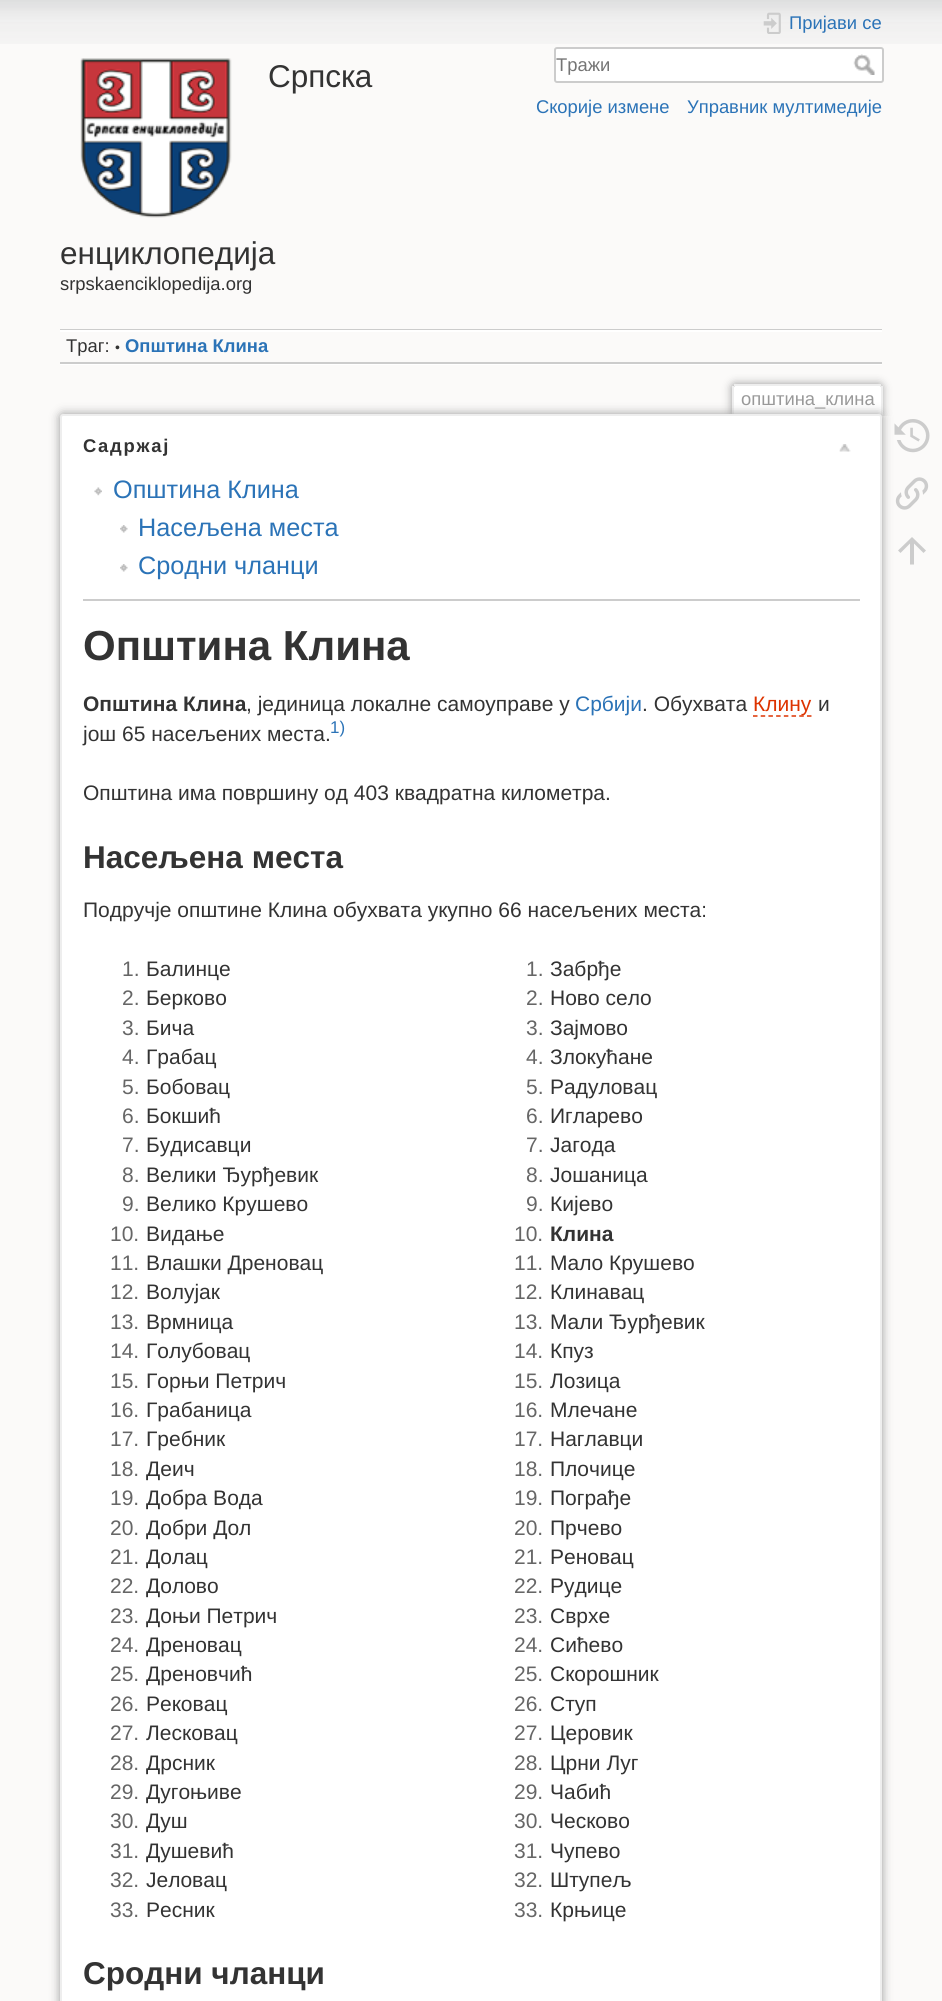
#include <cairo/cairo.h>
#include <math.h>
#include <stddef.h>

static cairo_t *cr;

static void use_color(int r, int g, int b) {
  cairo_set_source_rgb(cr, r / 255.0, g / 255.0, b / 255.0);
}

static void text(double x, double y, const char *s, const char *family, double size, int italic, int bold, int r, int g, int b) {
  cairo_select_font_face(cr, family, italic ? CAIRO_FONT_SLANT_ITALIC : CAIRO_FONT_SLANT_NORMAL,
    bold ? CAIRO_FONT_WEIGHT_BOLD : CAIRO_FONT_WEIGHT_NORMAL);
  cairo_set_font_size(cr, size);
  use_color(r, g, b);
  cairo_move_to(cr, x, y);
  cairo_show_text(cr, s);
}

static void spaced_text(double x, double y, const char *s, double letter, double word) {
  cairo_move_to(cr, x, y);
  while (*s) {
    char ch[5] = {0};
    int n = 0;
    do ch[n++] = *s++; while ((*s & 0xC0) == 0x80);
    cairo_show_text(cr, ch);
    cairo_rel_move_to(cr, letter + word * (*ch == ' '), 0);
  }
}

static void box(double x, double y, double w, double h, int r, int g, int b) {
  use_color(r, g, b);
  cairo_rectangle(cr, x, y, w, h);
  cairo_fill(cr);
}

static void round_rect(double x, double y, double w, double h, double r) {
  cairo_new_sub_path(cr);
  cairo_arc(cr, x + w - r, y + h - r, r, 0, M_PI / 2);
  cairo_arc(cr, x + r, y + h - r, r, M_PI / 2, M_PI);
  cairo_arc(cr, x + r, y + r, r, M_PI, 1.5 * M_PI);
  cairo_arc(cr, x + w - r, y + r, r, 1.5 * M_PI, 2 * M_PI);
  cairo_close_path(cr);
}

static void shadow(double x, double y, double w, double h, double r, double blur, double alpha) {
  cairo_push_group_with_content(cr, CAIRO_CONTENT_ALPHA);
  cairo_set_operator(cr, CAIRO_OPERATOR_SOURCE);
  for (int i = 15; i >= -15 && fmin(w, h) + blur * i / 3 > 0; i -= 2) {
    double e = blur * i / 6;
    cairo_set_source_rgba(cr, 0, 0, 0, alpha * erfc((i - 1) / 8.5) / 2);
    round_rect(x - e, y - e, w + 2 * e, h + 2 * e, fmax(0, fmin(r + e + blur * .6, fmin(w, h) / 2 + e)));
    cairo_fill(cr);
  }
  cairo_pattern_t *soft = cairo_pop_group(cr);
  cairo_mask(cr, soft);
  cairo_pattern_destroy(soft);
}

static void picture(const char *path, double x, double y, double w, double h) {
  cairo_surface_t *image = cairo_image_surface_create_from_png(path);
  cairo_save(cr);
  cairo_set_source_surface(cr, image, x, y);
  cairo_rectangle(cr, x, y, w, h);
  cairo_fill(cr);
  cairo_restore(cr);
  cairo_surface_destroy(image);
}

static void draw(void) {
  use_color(251, 250, 249);
  cairo_paint(cr);
  picture("img_01.png", 0, 0, 942, 44);
  picture("img_02.png", 80, 58, 152, 160);
  picture("img_03.png", 763, 12, 18, 22);
  use_color(255, 255, 255);
  round_rect(555, 48, 328, 34, 2);
  cairo_fill_preserve(cr);
  use_color(204, 204, 204);
  cairo_stroke(cr);
  picture("img_04.png", 853, 54, 22, 21);
  box(60, 329, 822, 1, 204, 204, 204);
  box(60, 364, 822, 1, 255, 255, 255);
  box(60, 330, 822, 2, 255, 255, 255);
  box(60, 362, 822, 2, 204, 204, 204);
  cairo_save(cr);
  cairo_rectangle(cr, 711, 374, 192, 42);
  cairo_clip(cr);
  use_color(153, 153, 153);
  shadow(732, 384, 150, 32, 3, 4.5, 1);
  cairo_restore(cr);
  use_color(255, 255, 255);
  cairo_new_path(cr);
  cairo_move_to(cr, 735.5, 386);
  cairo_line_to(cr, 879.5, 386);
  cairo_curve_to(cr, 880.5, 386, 881, 386.5, 881, 387.5);
  cairo_line_to(cr, 881, 416);
  cairo_line_to(cr, 734, 416);
  cairo_line_to(cr, 734, 387.5);
  cairo_curve_to(cr, 734, 386.5, 734.5, 386, 735.5, 386);
  cairo_close_path(cr);
  cairo_fill(cr);
  box(734, 384, 147, 2, 238, 238, 238);
  box(881, 386, 2, 30, 238, 238, 238);
  box(732, 386, 2, 30, 238, 238, 238);
  use_color(153, 153, 153);
  shadow(60, 414, 822, 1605, 3, 5, 1);
  use_color(255, 255, 255);
  round_rect(61, 415, 820, 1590, 2);
  cairo_fill_preserve(cr);
  use_color(238, 238, 238);
  cairo_stroke(cr);
  box(83, 599, 777, 2, 204, 204, 204);
  picture("img_05.png", 839, 444, 12, 8);
  picture("img_06.png", 94, 487, 8, 9);
  picture("img_07.png", 120, 525, 8, 8);
  picture("img_07.png", 120, 564, 8, 8);
  cairo_new_path(cr);
  cairo_move_to(cr, 753, 716);
  cairo_line_to(cr, 811.5, 716);
  use_color(221, 51, 0);
  cairo_set_line_width(cr, 1.5);
  cairo_set_dash(cr, (double[]){4.5, 3.21}, 2, 0);
  cairo_stroke(cr);
  picture("img_08.png", 894, 419, 36, 34);
  picture("img_09.png", 895, 477, 34, 33);
  use_color(204, 204, 204);
  cairo_new_path(cr);
  cairo_move_to(cr, 914, 564.5);
  cairo_line_to(cr, 910, 564.5);
  cairo_line_to(cr, 910, 543.5);
  cairo_line_to(cr, 900.5, 553);
  cairo_line_to(cr, 898, 550.5);
  cairo_line_to(cr, 912, 537);
  cairo_line_to(cr, 926, 550.5);
  cairo_line_to(cr, 923.5, 553);
  cairo_line_to(cr, 914, 543.5);
  cairo_close_path(cr);
  cairo_fill(cr);
  text(268, 87, "Српска", "Liberation Sans", 31.5, 0, 0, 51, 51, 51);
  text(60, 264, "енциклопедија", "Liberation Sans", 31.5, 0, 0, 51, 51, 51);
  text(60, 290, "srpskaenciklopedija.org", "Liberation Sans", 18.4, 0, 0, 51, 51, 51);
  text(789, 29, "Пријави се", "Liberation Sans", 18.4, 0, 0, 43, 115, 183);
  text(556, 71, "Тражи", "Liberation Sans", 18.4, 0, 0, 117, 117, 117);
  text(536, 113, "Скорије измене", "Liberation Sans", 18.4, 0, 0, 43, 115, 183);
  text(687, 113, "Управник мултимедије", "Liberation Sans", 18.4, 0, 0, 43, 115, 183);
  text(66, 352, "Траг:", "Liberation Sans", 18.4, 0, 0, 51, 51, 51);
  text(115, 352, "•", "Liberation Sans", 14, 0, 0, 51, 51, 51);
  text(125, 352, "Општина Клина", "Liberation Sans", 18.4, 0, 1, 43, 115, 183);
  text(741, 405, "општина_клина", "Liberation Sans", 18.4, 0, 0, 153, 153, 153);
  cairo_select_font_face(cr, "Liberation Sans", CAIRO_FONT_SLANT_NORMAL, CAIRO_FONT_WEIGHT_BOLD);
  use_color(51, 51, 51);
  spaced_text(83, 452, "Садржај", 1.75, 0);
  text(113, 498, "Општина Клина", "Liberation Sans", 25.25, 0, 0, 43, 115, 183);
  text(138, 536, "Насељена места", "Liberation Sans", 25.25, 0, 0, 43, 115, 183);
  text(138, 574, "Сродни чланци", "Liberation Sans", 25.25, 0, 0, 43, 115, 183);
  text(83, 660, "Општина Клина", "Liberation Sans", 42, 0, 1, 51, 51, 51);
  text(83, 711, "Општина Клина", "Liberation Sans", 21, 0, 1, 51, 51, 51);
  text(246, 711, ", јединица локалне самоуправе у", "Liberation Sans", 21, 0, 0, 51, 51, 51);
  text(575, 711, "Србији", "Liberation Sans", 21, 0, 0, 43, 115, 183);
  text(642, 711, ". Обухвата", "Liberation Sans", 21, 0, 0, 51, 51, 51);
  text(753, 711, "Клину", "Liberation Sans", 21, 0, 0, 221, 51, 0);
  text(818, 711, "и", "Liberation Sans", 21, 0, 0, 51, 51, 51);
  text(83, 741, "још 65 насељених места.", "Liberation Sans", 21, 0, 0, 51, 51, 51);
  text(330, 733, "1)", "Liberation Sans", 17, 0, 0, 43, 115, 183);
  text(83, 800, "Општина има површину од 403 квадратна километра.", "Liberation Sans", 21, 0, 0, 51, 51, 51);
  text(83, 868, "Насељена места", "Liberation Sans", 31.5, 0, 1, 51, 51, 51);
  text(83, 917, "Подручје општине Клина обухвата укупно 66 насељених места:", "Liberation Sans", 21, 0, 0, 51, 51, 51);
  text(122, 976, "1.", "Liberation Sans", 21, 0, 0, 102, 102, 102);
  text(146, 976, "Балинце", "Liberation Sans", 21, 0, 0, 51, 51, 51);
  text(122, 1005, "2.", "Liberation Sans", 21, 0, 0, 102, 102, 102);
  text(146, 1005, "Берково", "Liberation Sans", 21, 0, 0, 51, 51, 51);
  text(122, 1035, "3.", "Liberation Sans", 21, 0, 0, 102, 102, 102);
  text(146, 1035, "Бича", "Liberation Sans", 21, 0, 0, 51, 51, 51);
  text(122, 1064, "4.", "Liberation Sans", 21, 0, 0, 102, 102, 102);
  text(146, 1064, "Грабац", "Liberation Sans", 21, 0, 0, 51, 51, 51);
  text(122, 1094, "5.", "Liberation Sans", 21, 0, 0, 102, 102, 102);
  text(146, 1094, "Бобовац", "Liberation Sans", 21, 0, 0, 51, 51, 51);
  text(122, 1123, "6.", "Liberation Sans", 21, 0, 0, 102, 102, 102);
  text(146, 1123, "Бокшић", "Liberation Sans", 21, 0, 0, 51, 51, 51);
  text(122, 1152, "7.", "Liberation Sans", 21, 0, 0, 102, 102, 102);
  text(146, 1152, "Будисавци", "Liberation Sans", 21, 0, 0, 51, 51, 51);
  text(122, 1182, "8.", "Liberation Sans", 21, 0, 0, 102, 102, 102);
  text(146, 1182, "Велики Ђурђевик", "Liberation Sans", 21, 0, 0, 51, 51, 51);
  text(122, 1211, "9.", "Liberation Sans", 21, 0, 0, 102, 102, 102);
  text(146, 1211, "Велико Крушево", "Liberation Sans", 21, 0, 0, 51, 51, 51);
  text(110, 1241, "10.", "Liberation Sans", 21, 0, 0, 102, 102, 102);
  text(146, 1241, "Видање", "Liberation Sans", 21, 0, 0, 51, 51, 51);
  text(110, 1270, "11.", "Liberation Sans", 21, 0, 0, 102, 102, 102);
  text(146, 1270, "Влашки Дреновац", "Liberation Sans", 21, 0, 0, 51, 51, 51);
  text(110, 1299, "12.", "Liberation Sans", 21, 0, 0, 102, 102, 102);
  text(146, 1299, "Волујак", "Liberation Sans", 21, 0, 0, 51, 51, 51);
  text(110, 1329, "13.", "Liberation Sans", 21, 0, 0, 102, 102, 102);
  text(146, 1329, "Врмница", "Liberation Sans", 21, 0, 0, 51, 51, 51);
  text(110, 1358, "14.", "Liberation Sans", 21, 0, 0, 102, 102, 102);
  text(146, 1358, "Голубовац", "Liberation Sans", 21, 0, 0, 51, 51, 51);
  text(110, 1388, "15.", "Liberation Sans", 21, 0, 0, 102, 102, 102);
  text(146, 1388, "Горњи Петрич", "Liberation Sans", 21, 0, 0, 51, 51, 51);
  text(110, 1417, "16.", "Liberation Sans", 21, 0, 0, 102, 102, 102);
  text(146, 1417, "Грабаница", "Liberation Sans", 21, 0, 0, 51, 51, 51);
  text(110, 1446, "17.", "Liberation Sans", 21, 0, 0, 102, 102, 102);
  text(146, 1446, "Гребник", "Liberation Sans", 21, 0, 0, 51, 51, 51);
  text(110, 1476, "18.", "Liberation Sans", 21, 0, 0, 102, 102, 102);
  text(146, 1476, "Деич", "Liberation Sans", 21, 0, 0, 51, 51, 51);
  text(110, 1505, "19.", "Liberation Sans", 21, 0, 0, 102, 102, 102);
  text(146, 1505, "Добра Вода", "Liberation Sans", 21, 0, 0, 51, 51, 51);
  text(110, 1535, "20.", "Liberation Sans", 21, 0, 0, 102, 102, 102);
  text(146, 1535, "Добри Дол", "Liberation Sans", 21, 0, 0, 51, 51, 51);
  text(110, 1564, "21.", "Liberation Sans", 21, 0, 0, 102, 102, 102);
  text(146, 1564, "Долац", "Liberation Sans", 21, 0, 0, 51, 51, 51);
  text(110, 1593, "22.", "Liberation Sans", 21, 0, 0, 102, 102, 102);
  text(146, 1593, "Долово", "Liberation Sans", 21, 0, 0, 51, 51, 51);
  text(110, 1623, "23.", "Liberation Sans", 21, 0, 0, 102, 102, 102);
  text(146, 1623, "Доњи Петрич", "Liberation Sans", 21, 0, 0, 51, 51, 51);
  text(110, 1652, "24.", "Liberation Sans", 21, 0, 0, 102, 102, 102);
  text(146, 1652, "Дреновац", "Liberation Sans", 21, 0, 0, 51, 51, 51);
  text(110, 1681, "25.", "Liberation Sans", 21, 0, 0, 102, 102, 102);
  text(146, 1681, "Дреновчић", "Liberation Sans", 21, 0, 0, 51, 51, 51);
  text(110, 1711, "26.", "Liberation Sans", 21, 0, 0, 102, 102, 102);
  text(146, 1711, "Рековац", "Liberation Sans", 21, 0, 0, 51, 51, 51);
  text(110, 1740, "27.", "Liberation Sans", 21, 0, 0, 102, 102, 102);
  text(146, 1740, "Лесковац", "Liberation Sans", 21, 0, 0, 51, 51, 51);
  text(110, 1770, "28.", "Liberation Sans", 21, 0, 0, 102, 102, 102);
  text(146, 1770, "Дрсник", "Liberation Sans", 21, 0, 0, 51, 51, 51);
  text(110, 1799, "29.", "Liberation Sans", 21, 0, 0, 102, 102, 102);
  text(146, 1799, "Дугоњиве", "Liberation Sans", 21, 0, 0, 51, 51, 51);
  text(110, 1828, "30.", "Liberation Sans", 21, 0, 0, 102, 102, 102);
  text(146, 1828, "Душ", "Liberation Sans", 21, 0, 0, 51, 51, 51);
  text(110, 1858, "31.", "Liberation Sans", 21, 0, 0, 102, 102, 102);
  text(146, 1858, "Душевић", "Liberation Sans", 21, 0, 0, 51, 51, 51);
  text(110, 1887, "32.", "Liberation Sans", 21, 0, 0, 102, 102, 102);
  text(146, 1887, "Јеловац", "Liberation Sans", 21, 0, 0, 51, 51, 51);
  text(110, 1917, "33.", "Liberation Sans", 21, 0, 0, 102, 102, 102);
  text(146, 1917, "Ресник", "Liberation Sans", 21, 0, 0, 51, 51, 51);
  text(526, 976, "1.", "Liberation Sans", 21, 0, 0, 102, 102, 102);
  text(550, 976, "Забрђе", "Liberation Sans", 21, 0, 0, 51, 51, 51);
  text(526, 1005, "2.", "Liberation Sans", 21, 0, 0, 102, 102, 102);
  text(550, 1005, "Ново село", "Liberation Sans", 21, 0, 0, 51, 51, 51);
  text(526, 1035, "3.", "Liberation Sans", 21, 0, 0, 102, 102, 102);
  text(550, 1035, "Зајмово", "Liberation Sans", 21, 0, 0, 51, 51, 51);
  text(526, 1064, "4.", "Liberation Sans", 21, 0, 0, 102, 102, 102);
  text(550, 1064, "Злокућане", "Liberation Sans", 21, 0, 0, 51, 51, 51);
  text(526, 1094, "5.", "Liberation Sans", 21, 0, 0, 102, 102, 102);
  text(550, 1094, "Радуловац", "Liberation Sans", 21, 0, 0, 51, 51, 51);
  text(526, 1123, "6.", "Liberation Sans", 21, 0, 0, 102, 102, 102);
  text(550, 1123, "Игларево", "Liberation Sans", 21, 0, 0, 51, 51, 51);
  text(526, 1152, "7.", "Liberation Sans", 21, 0, 0, 102, 102, 102);
  text(550, 1152, "Јагода", "Liberation Sans", 21, 0, 0, 51, 51, 51);
  text(526, 1182, "8.", "Liberation Sans", 21, 0, 0, 102, 102, 102);
  text(550, 1182, "Јошаница", "Liberation Sans", 21, 0, 0, 51, 51, 51);
  text(526, 1211, "9.", "Liberation Sans", 21, 0, 0, 102, 102, 102);
  text(550, 1211, "Кијево", "Liberation Sans", 21, 0, 0, 51, 51, 51);
  text(514, 1241, "10.", "Liberation Sans", 21, 0, 0, 102, 102, 102);
  text(550, 1241, "Клина", "Liberation Sans", 21, 0, 1, 51, 51, 51);
  text(514, 1270, "11.", "Liberation Sans", 21, 0, 0, 102, 102, 102);
  text(550, 1270, "Мало Крушево", "Liberation Sans", 21, 0, 0, 51, 51, 51);
  text(514, 1299, "12.", "Liberation Sans", 21, 0, 0, 102, 102, 102);
  text(550, 1299, "Клинавац", "Liberation Sans", 21, 0, 0, 51, 51, 51);
  text(514, 1329, "13.", "Liberation Sans", 21, 0, 0, 102, 102, 102);
  text(550, 1329, "Мали Ђурђевик", "Liberation Sans", 21, 0, 0, 51, 51, 51);
  text(514, 1358, "14.", "Liberation Sans", 21, 0, 0, 102, 102, 102);
  text(550, 1358, "Кпуз", "Liberation Sans", 21, 0, 0, 51, 51, 51);
  text(514, 1388, "15.", "Liberation Sans", 21, 0, 0, 102, 102, 102);
  text(550, 1388, "Лозица", "Liberation Sans", 21, 0, 0, 51, 51, 51);
  text(514, 1417, "16.", "Liberation Sans", 21, 0, 0, 102, 102, 102);
  text(550, 1417, "Млечане", "Liberation Sans", 21, 0, 0, 51, 51, 51);
  text(514, 1446, "17.", "Liberation Sans", 21, 0, 0, 102, 102, 102);
  text(550, 1446, "Наглавци", "Liberation Sans", 21, 0, 0, 51, 51, 51);
  text(514, 1476, "18.", "Liberation Sans", 21, 0, 0, 102, 102, 102);
  text(550, 1476, "Плочице", "Liberation Sans", 21, 0, 0, 51, 51, 51);
  text(514, 1505, "19.", "Liberation Sans", 21, 0, 0, 102, 102, 102);
  text(550, 1505, "Пограђе", "Liberation Sans", 21, 0, 0, 51, 51, 51);
  text(514, 1535, "20.", "Liberation Sans", 21, 0, 0, 102, 102, 102);
  text(550, 1535, "Прчево", "Liberation Sans", 21, 0, 0, 51, 51, 51);
  text(514, 1564, "21.", "Liberation Sans", 21, 0, 0, 102, 102, 102);
  text(550, 1564, "Реновац", "Liberation Sans", 21, 0, 0, 51, 51, 51);
  text(514, 1593, "22.", "Liberation Sans", 21, 0, 0, 102, 102, 102);
  text(550, 1593, "Рудице", "Liberation Sans", 21, 0, 0, 51, 51, 51);
  text(514, 1623, "23.", "Liberation Sans", 21, 0, 0, 102, 102, 102);
  text(550, 1623, "Сврхе", "Liberation Sans", 21, 0, 0, 51, 51, 51);
  text(514, 1652, "24.", "Liberation Sans", 21, 0, 0, 102, 102, 102);
  text(550, 1652, "Сићево", "Liberation Sans", 21, 0, 0, 51, 51, 51);
  text(514, 1681, "25.", "Liberation Sans", 21, 0, 0, 102, 102, 102);
  text(550, 1681, "Скорошник", "Liberation Sans", 21, 0, 0, 51, 51, 51);
  text(514, 1711, "26.", "Liberation Sans", 21, 0, 0, 102, 102, 102);
  text(550, 1711, "Ступ", "Liberation Sans", 21, 0, 0, 51, 51, 51);
  text(514, 1740, "27.", "Liberation Sans", 21, 0, 0, 102, 102, 102);
  text(550, 1740, "Церовик", "Liberation Sans", 21, 0, 0, 51, 51, 51);
  text(514, 1770, "28.", "Liberation Sans", 21, 0, 0, 102, 102, 102);
  text(550, 1770, "Црни Луг", "Liberation Sans", 21, 0, 0, 51, 51, 51);
  text(514, 1799, "29.", "Liberation Sans", 21, 0, 0, 102, 102, 102);
  text(550, 1799, "Чабић", "Liberation Sans", 21, 0, 0, 51, 51, 51);
  text(514, 1828, "30.", "Liberation Sans", 21, 0, 0, 102, 102, 102);
  text(550, 1828, "Ческово", "Liberation Sans", 21, 0, 0, 51, 51, 51);
  text(514, 1858, "31.", "Liberation Sans", 21, 0, 0, 102, 102, 102);
  text(550, 1858, "Чупево", "Liberation Sans", 21, 0, 0, 51, 51, 51);
  text(514, 1887, "32.", "Liberation Sans", 21, 0, 0, 102, 102, 102);
  text(550, 1887, "Штупељ", "Liberation Sans", 21, 0, 0, 51, 51, 51);
  text(514, 1917, "33.", "Liberation Sans", 21, 0, 0, 102, 102, 102);
  text(550, 1917, "Крњице", "Liberation Sans", 21, 0, 0, 51, 51, 51);
  text(83, 1984, "Сродни чланци", "Liberation Sans", 31.5, 0, 1, 51, 51, 51);
}

int main(void) {
  cairo_surface_t *surface = cairo_image_surface_create(CAIRO_FORMAT_RGB24, 942, 2001);
  cr = cairo_create(surface);
  cairo_font_options_t *options = cairo_font_options_create();
  cairo_font_options_set_hint_metrics(options, CAIRO_HINT_METRICS_OFF);
  cairo_font_options_set_hint_style(options, CAIRO_HINT_STYLE_NONE);
  cairo_set_font_options(cr, options);
  cairo_set_miter_limit(cr, 4);
  draw();
  cairo_surface_write_to_png(surface, "out.png");
  cairo_font_options_destroy(options);
  cairo_destroy(cr);
  cairo_surface_destroy(surface);
  return 0;
}
